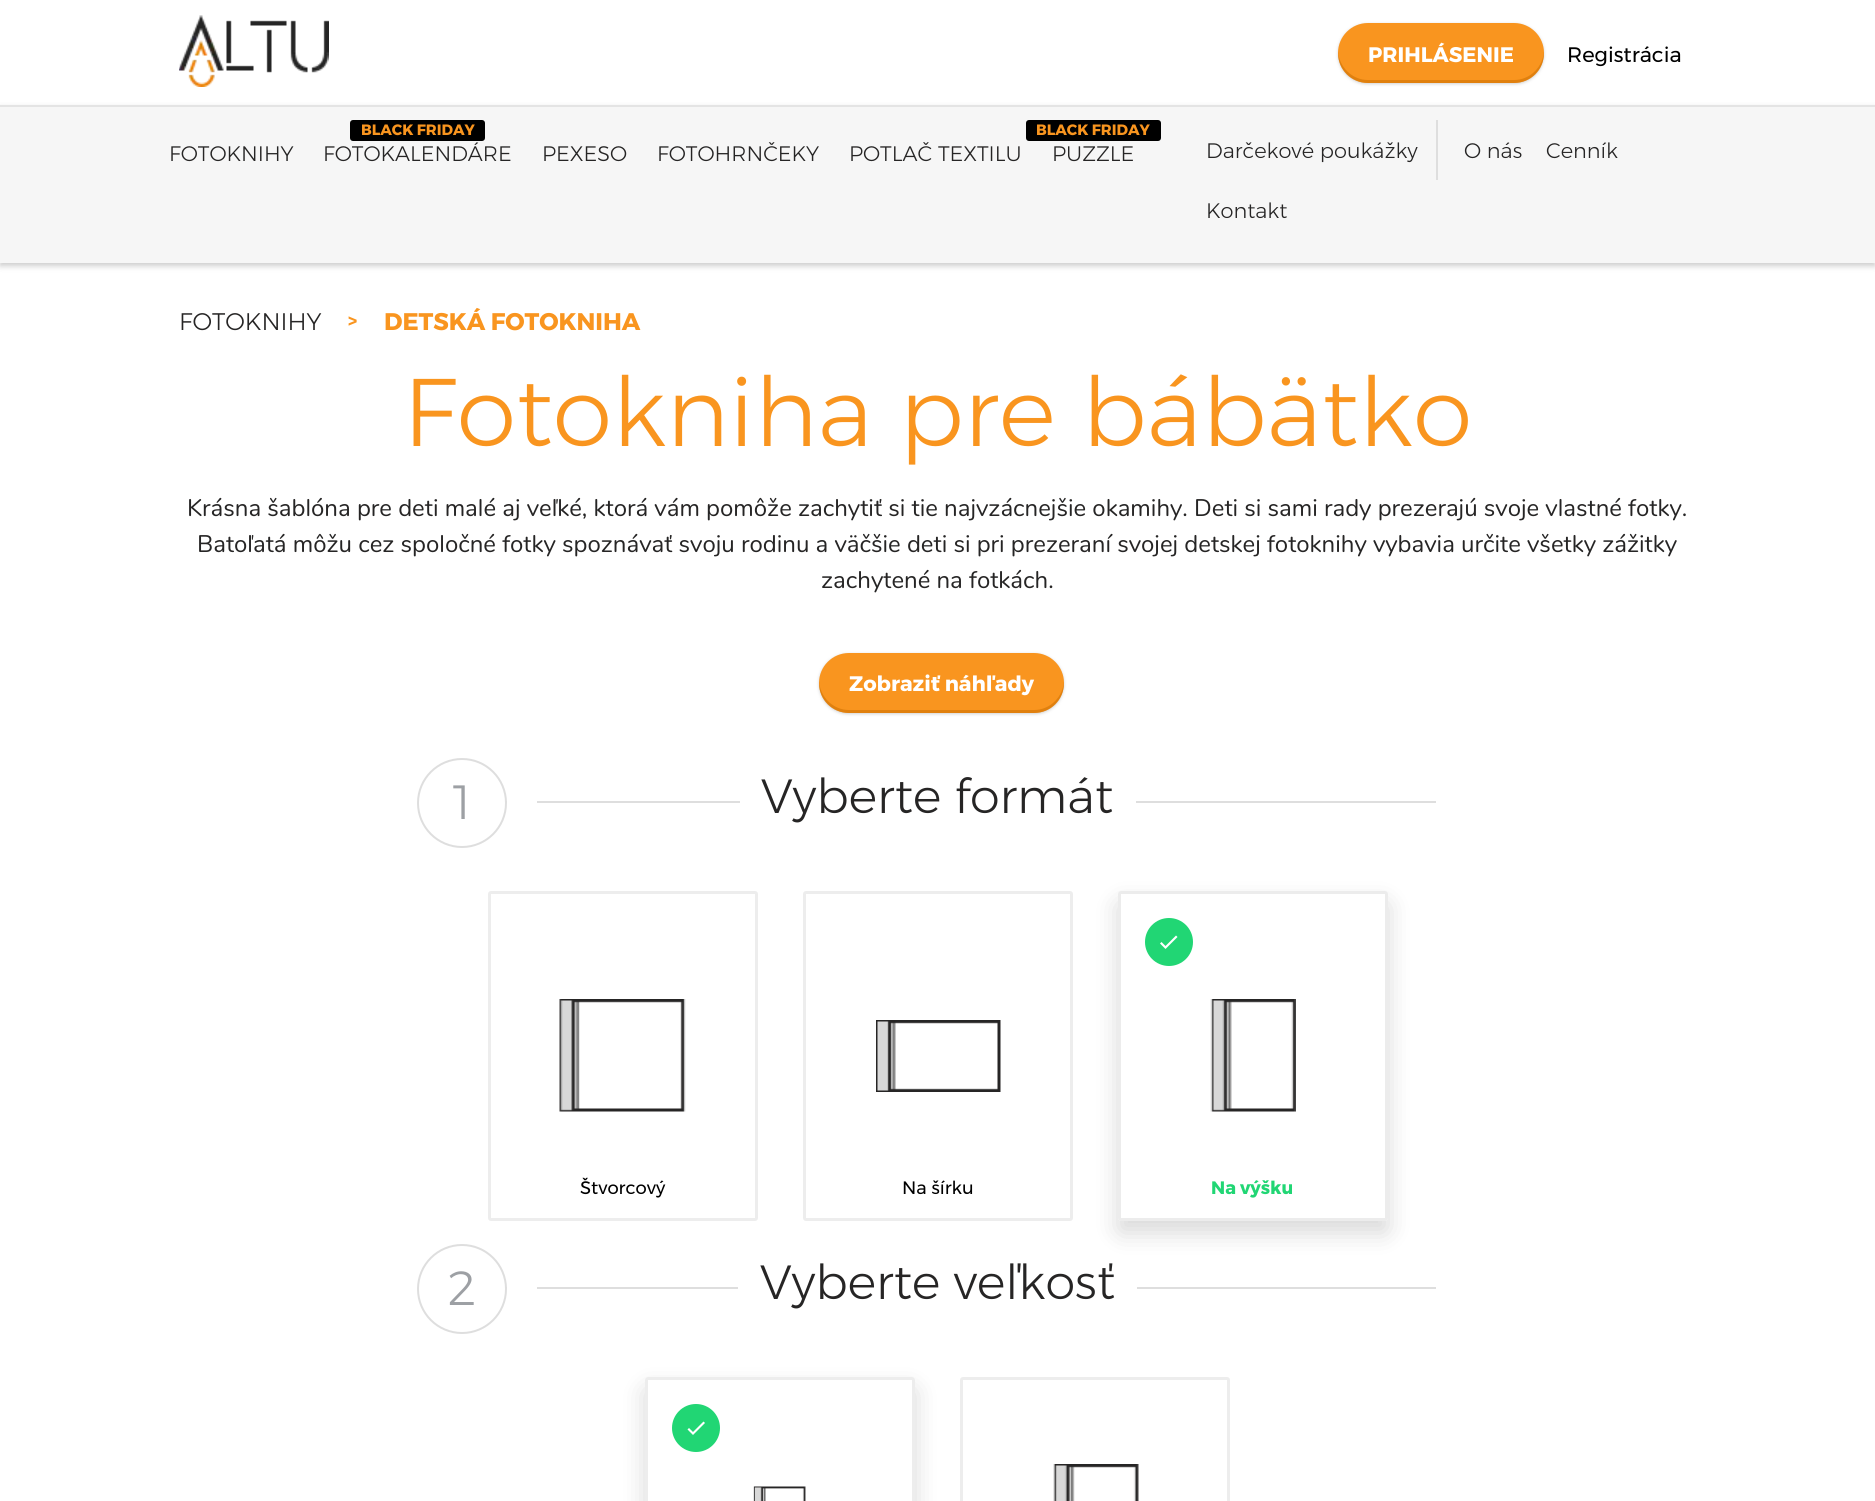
#include <cairo/cairo.h>
#include <math.h>
#include <stddef.h>

static cairo_t *cr;

static void use_color(int r, int g, int b) {
  cairo_set_source_rgb(cr, r / 255.0, g / 255.0, b / 255.0);
}

static void text(double x, double y, const char *s, const char *family, double size, int italic, int bold, int r, int g, int b) {
  cairo_select_font_face(cr, family, italic ? CAIRO_FONT_SLANT_ITALIC : CAIRO_FONT_SLANT_NORMAL,
    bold ? CAIRO_FONT_WEIGHT_BOLD : CAIRO_FONT_WEIGHT_NORMAL);
  cairo_set_font_size(cr, size);
  use_color(r, g, b);
  cairo_move_to(cr, x, y);
  cairo_show_text(cr, s);
}

static void box(double x, double y, double w, double h, int r, int g, int b) {
  use_color(r, g, b);
  cairo_rectangle(cr, x, y, w, h);
  cairo_fill(cr);
}

static void round_rect(double x, double y, double w, double h, double r) {
  cairo_new_sub_path(cr);
  cairo_arc(cr, x + w - r, y + h - r, r, 0, M_PI / 2);
  cairo_arc(cr, x + r, y + h - r, r, M_PI / 2, M_PI);
  cairo_arc(cr, x + r, y + r, r, M_PI, 1.5 * M_PI);
  cairo_arc(cr, x + w - r, y + r, r, 1.5 * M_PI, 2 * M_PI);
  cairo_close_path(cr);
}

static void shadow(double x, double y, double w, double h, double r, double blur, double alpha) {
  cairo_push_group_with_content(cr, CAIRO_CONTENT_ALPHA);
  cairo_set_operator(cr, CAIRO_OPERATOR_SOURCE);
  for (int i = 15; i >= -15 && fmin(w, h) + blur * i / 3 > 0; i -= 2) {
    double e = blur * i / 6;
    cairo_set_source_rgba(cr, 0, 0, 0, alpha * erfc((i - 1) / 8.5) / 2);
    round_rect(x - e, y - e, w + 2 * e, h + 2 * e, fmax(0, fmin(r + e + blur * .6, fmin(w, h) / 2 + e)));
    cairo_fill(cr);
  }
  cairo_pattern_t *soft = cairo_pop_group(cr);
  cairo_mask(cr, soft);
  cairo_pattern_destroy(soft);
}

static void picture(const char *path, double x, double y, double w, double h) {
  cairo_surface_t *image = cairo_image_surface_create_from_png(path);
  cairo_save(cr);
  cairo_set_source_surface(cr, image, x, y);
  cairo_rectangle(cr, x, y, w, h);
  cairo_fill(cr);
  cairo_restore(cr);
  cairo_surface_destroy(image);
}

static void draw(void) {
  use_color(255, 255, 255);
  cairo_paint(cr);
  picture("img_01.png", 179, 15, 150, 72);
  use_color(209, 209, 209);
  shadow(1338, 24, 206, 60, 30, 1.5, 1);
  use_color(249, 149, 31);
  round_rect(1338, 23, 206, 60, 30);
  cairo_fill(cr);
  cairo_set_source_rgba(cr, 0.8, 0.435, 0, 0.55);
  cairo_new_path(cr);
  cairo_move_to(cr, 1338, 51);
  cairo_line_to(cr, 1338, 53);
  cairo_curve_to(cr, 1338, 70, 1351, 83, 1368, 83);
  cairo_line_to(cr, 1514, 83);
  cairo_curve_to(cr, 1531, 83, 1544, 70, 1544, 53);
  cairo_line_to(cr, 1544, 51);
  cairo_curve_to(cr, 1543, 67, 1530, 80, 1514, 80);
  cairo_line_to(cr, 1368, 80);
  cairo_curve_to(cr, 1352, 80, 1339, 67, 1338, 51);
  cairo_close_path(cr);
  cairo_fill(cr);
  use_color(0, 0, 0);
  shadow(0, 108, 1875, 158, 0, 3, 0.2);
  box(0, 107, 1875, 156, 246, 246, 246);
  box(0, 105, 1875, 2, 228, 228, 228);
  use_color(0, 0, 0);
  round_rect(350, 120, 135, 21, 3);
  cairo_fill(cr);
  round_rect(1026, 120, 135, 21, 3);
  cairo_fill(cr);
  box(1436, 120, 2, 60, 222, 222, 222);
  use_color(209, 209, 209);
  shadow(819, 654, 245, 60, 30, 1.5, 1);
  use_color(249, 149, 31);
  round_rect(819, 653, 245, 60, 30);
  cairo_fill(cr);
  cairo_set_source_rgba(cr, 0.8, 0.435, 0, 0.55);
  cairo_new_path(cr);
  cairo_move_to(cr, 819, 681);
  cairo_line_to(cr, 819, 683);
  cairo_curve_to(cr, 819, 700, 832, 713, 849, 713);
  cairo_line_to(cr, 1034, 713);
  cairo_curve_to(cr, 1051, 713, 1064, 700, 1064, 683);
  cairo_line_to(cr, 1064, 681);
  cairo_curve_to(cr, 1063, 697, 1050, 710, 1034, 710);
  cairo_line_to(cr, 849, 710);
  cairo_curve_to(cr, 833, 710, 820, 697, 819, 681);
  cairo_close_path(cr);
  cairo_fill(cr);
  box(506, 801, 930, 2, 222, 222, 222);
  box(507, 801, 30, 2, 255, 255, 255);
  cairo_arc(cr, 462, 803, 44, 0, 2 * M_PI);
  cairo_fill_preserve(cr);
  use_color(222, 222, 222);
  cairo_stroke(cr);
  box(740, 801, 396, 2, 255, 255, 255);
  picture("img_02.png", 559, 999, 127, 113);
  round_rect(489.5, 892.5, 267, 327, 1.5);
  use_color(237, 237, 237);
  cairo_set_line_width(cr, 3);
  cairo_stroke(cr);
  picture("img_03.png", 876, 1020, 125, 72);
  round_rect(804.5, 892.5, 267, 327, 1.5);
  cairo_stroke(cr);
  cairo_save(cr);
  cairo_set_fill_rule(cr, CAIRO_FILL_RULE_EVEN_ODD);
  cairo_new_path(cr);
  cairo_move_to(cr, 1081, 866);
  cairo_line_to(cr, 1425, 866);
  cairo_line_to(cr, 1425, 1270);
  cairo_line_to(cr, 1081, 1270);
  cairo_close_path(cr);
  cairo_move_to(cr, 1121, 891);
  cairo_line_to(cr, 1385, 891);
  cairo_curve_to(cr, 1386.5, 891, 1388, 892.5, 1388, 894);
  cairo_line_to(cr, 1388, 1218);
  cairo_curve_to(cr, 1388, 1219.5, 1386.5, 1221, 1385, 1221);
  cairo_line_to(cr, 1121, 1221);
  cairo_curve_to(cr, 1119.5, 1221, 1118, 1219.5, 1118, 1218);
  cairo_line_to(cr, 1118, 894);
  cairo_curve_to(cr, 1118, 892.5, 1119.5, 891, 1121, 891);
  cairo_close_path(cr);
  cairo_clip(cr);
  use_color(0, 0, 0);
  shadow(1118, 903, 270, 330, 3, 12, 0.15);
  cairo_restore(cr);
  picture("img_04.png", 1210, 999, 86, 113);
  round_rect(1119.5, 892.5, 267, 327, 1.5);
  cairo_set_source_rgba(cr, 0.82, 0.82, 0.82, 0.4);
  cairo_stroke(cr);
  use_color(33, 214, 116);
  cairo_arc(cr, 1169, 942, 24, 0, 2 * M_PI);
  cairo_fill(cr);
  use_color(255, 255, 255);
  cairo_new_path(cr);
  cairo_move_to(cr, 1165.5, 946);
  cairo_line_to(cr, 1161.5, 942);
  cairo_line_to(cr, 1160, 943.5);
  cairo_line_to(cr, 1165.5, 949);
  cairo_line_to(cr, 1177.5, 937);
  cairo_line_to(cr, 1176, 935.5);
  cairo_close_path(cr);
  cairo_fill(cr);
  box(506, 1287, 930, 2, 222, 222, 222);
  box(507, 1287, 30, 2, 255, 255, 255);
  cairo_arc(cr, 462, 1289, 44, 0, 2 * M_PI);
  cairo_fill_preserve(cr);
  use_color(222, 222, 222);
  cairo_set_line_width(cr, 2);
  cairo_stroke(cr);
  box(738, 1287, 399, 2, 255, 255, 255);
  cairo_save(cr);
  cairo_set_fill_rule(cr, CAIRO_FILL_RULE_EVEN_ODD);
  cairo_new_path(cr);
  cairo_move_to(cr, 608, 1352);
  cairo_line_to(cr, 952, 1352);
  cairo_line_to(cr, 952, 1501);
  cairo_line_to(cr, 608, 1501);
  cairo_close_path(cr);
  cairo_move_to(cr, 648, 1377);
  cairo_line_to(cr, 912, 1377);
  cairo_curve_to(cr, 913.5, 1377, 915, 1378.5, 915, 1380);
  cairo_line_to(cr, 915, 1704);
  cairo_curve_to(cr, 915, 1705.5, 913.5, 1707, 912, 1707);
  cairo_line_to(cr, 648, 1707);
  cairo_curve_to(cr, 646.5, 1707, 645, 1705.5, 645, 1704);
  cairo_line_to(cr, 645, 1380);
  cairo_curve_to(cr, 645, 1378.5, 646.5, 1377, 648, 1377);
  cairo_close_path(cr);
  cairo_clip(cr);
  use_color(0, 0, 0);
  shadow(645, 1389, 270, 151, 3, 12, 0.15);
  cairo_restore(cr);
  picture("img_05.png", 753, 1486, 53, 15);
  round_rect(646.5, 1378.5, 267, 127, 1.5);
  use_color(237, 237, 237);
  cairo_set_line_width(cr, 3);
  cairo_stroke(cr);
  use_color(33, 214, 116);
  cairo_arc(cr, 696, 1428, 24, 0, 2 * M_PI);
  cairo_fill(cr);
  use_color(255, 255, 255);
  cairo_new_path(cr);
  cairo_move_to(cr, 693, 1432);
  cairo_line_to(cr, 689, 1428);
  cairo_line_to(cr, 687.5, 1429.5);
  cairo_line_to(cr, 693, 1435);
  cairo_line_to(cr, 705, 1423);
  cairo_line_to(cr, 703.5, 1421.5);
  cairo_close_path(cr);
  cairo_fill(cr);
  picture("img_06.png", 1053, 1464, 86, 37);
  round_rect(961.5, 1378.5, 267, 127, 1.5);
  use_color(237, 237, 237);
  cairo_stroke(cr);
  text(1368, 62, "PRIHLÁSENIE", "Montserrat", 21, 0, 1, 255, 255, 255);
  text(1567, 62, "Registrácia", "Montserrat", 21, 0, 0, 0, 0, 0);
  text(169, 161, "FOTOKNIHY", "Montserrat Light", 21, 0, 0, 38, 37, 37);
  text(361, 135, "BLACK FRIDAY", "Montserrat", 15, 0, 1, 249, 149, 31);
  text(323, 161, "FOTOKALENDÁRE", "Montserrat Light", 21, 0, 0, 38, 37, 37);
  text(542, 161, "PEXESO", "Montserrat Light", 21, 0, 0, 38, 37, 37);
  text(657, 161, "FOTOHRNČEKY", "Montserrat Light", 21, 0, 0, 38, 37, 37);
  text(849, 161, "POTLAČ TEXTILU", "Montserrat Light", 21, 0, 0, 38, 37, 37);
  text(1036, 135, "BLACK FRIDAY", "Montserrat", 15, 0, 1, 249, 149, 31);
  text(1052, 161, "PUZZLE", "Montserrat Light", 21, 0, 0, 38, 37, 37);
  text(1206, 158, "Darčekové poukážky", "Montserrat Light", 21, 0, 0, 38, 37, 37);
  text(1464, 158, "O nás", "Montserrat Light", 21, 0, 0, 38, 37, 37);
  text(1546, 158, "Cenník", "Montserrat Light", 21, 0, 0, 38, 37, 37);
  text(1206, 218, "Kontakt", "Montserrat Light", 21, 0, 0, 38, 37, 37);
  text(179, 330, "FOTOKNIHY", "Montserrat Light", 24, 0, 0, 38, 37, 37);
  text(348, 327, ">", "Montserrat", 18, 0, 1, 249, 149, 31);
  text(384, 330, "DETSKÁ FOTOKNIHA", "Montserrat", 24, 0, 1, 249, 149, 31);
  text(403, 446, "Fotokniha pre bábätko", "Montserrat Light", 96, 0, 0, 249, 149, 31);
  text(187, 516, "Krásna šablóna pre deti malé aj veľké, ktorá vám pomôže zachytiť si tie najvzácnejšie okamihy. Deti si sami rady prezerajú svoje vlastné fotky.", "Nunito", 24, 0, 0, 38, 37, 37);
  text(197, 552, "Batoľatá môžu cez spoločné fotky spoznávať svoju rodinu a väčšie deti si pri prezeraní svojej detskej fotoknihy vybavia určite všetky zážitky", "Nunito", 24, 0, 0, 38, 37, 37);
  text(821, 588, "zachytené na fotkách.", "Nunito", 24, 0, 0, 38, 37, 37);
  text(849, 691, "Zobraziť náhľady", "Montserrat", 21, 0, 1, 255, 255, 255);
  text(453, 819, "1", "Montserrat Light", 48, 0, 0, 157, 160, 164);
  text(761, 813, "Vyberte formát", "Montserrat Light", 48, 0, 0, 38, 37, 37);
  text(580, 1194, "Štvorcový", "Montserrat", 18, 0, 0, 0, 0, 0);
  text(902, 1194, "Na šírku", "Montserrat", 18, 0, 0, 0, 0, 0);
  text(1211, 1194, "Na výšku", "Montserrat", 18, 0, 1, 33, 214, 116);
  text(448, 1305, "2", "Montserrat Light", 48, 0, 0, 157, 160, 164);
  text(760, 1299, "Vyberte veľkosť", "Montserrat Light", 48, 0, 0, 38, 37, 37);
}

int main(void) {
  cairo_surface_t *surface = cairo_image_surface_create(CAIRO_FORMAT_RGB24, 1875, 1501);
  cr = cairo_create(surface);
  cairo_font_options_t *options = cairo_font_options_create();
  cairo_font_options_set_hint_metrics(options, CAIRO_HINT_METRICS_OFF);
  cairo_font_options_set_hint_style(options, CAIRO_HINT_STYLE_NONE);
  cairo_set_font_options(cr, options);
  cairo_set_miter_limit(cr, 4);
  draw();
  cairo_surface_write_to_png(surface, "out.png");
  cairo_font_options_destroy(options);
  cairo_destroy(cr);
  cairo_surface_destroy(surface);
  return 0;
}
